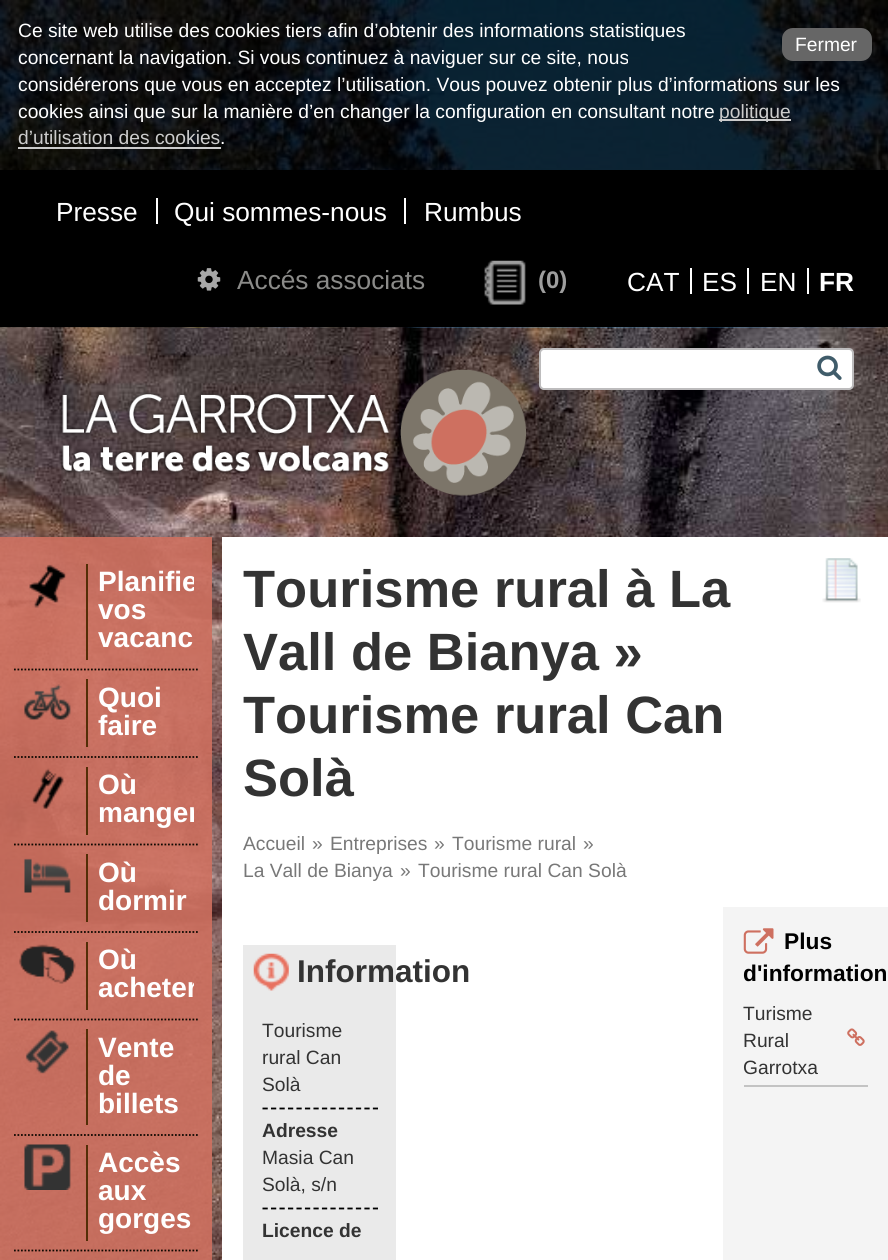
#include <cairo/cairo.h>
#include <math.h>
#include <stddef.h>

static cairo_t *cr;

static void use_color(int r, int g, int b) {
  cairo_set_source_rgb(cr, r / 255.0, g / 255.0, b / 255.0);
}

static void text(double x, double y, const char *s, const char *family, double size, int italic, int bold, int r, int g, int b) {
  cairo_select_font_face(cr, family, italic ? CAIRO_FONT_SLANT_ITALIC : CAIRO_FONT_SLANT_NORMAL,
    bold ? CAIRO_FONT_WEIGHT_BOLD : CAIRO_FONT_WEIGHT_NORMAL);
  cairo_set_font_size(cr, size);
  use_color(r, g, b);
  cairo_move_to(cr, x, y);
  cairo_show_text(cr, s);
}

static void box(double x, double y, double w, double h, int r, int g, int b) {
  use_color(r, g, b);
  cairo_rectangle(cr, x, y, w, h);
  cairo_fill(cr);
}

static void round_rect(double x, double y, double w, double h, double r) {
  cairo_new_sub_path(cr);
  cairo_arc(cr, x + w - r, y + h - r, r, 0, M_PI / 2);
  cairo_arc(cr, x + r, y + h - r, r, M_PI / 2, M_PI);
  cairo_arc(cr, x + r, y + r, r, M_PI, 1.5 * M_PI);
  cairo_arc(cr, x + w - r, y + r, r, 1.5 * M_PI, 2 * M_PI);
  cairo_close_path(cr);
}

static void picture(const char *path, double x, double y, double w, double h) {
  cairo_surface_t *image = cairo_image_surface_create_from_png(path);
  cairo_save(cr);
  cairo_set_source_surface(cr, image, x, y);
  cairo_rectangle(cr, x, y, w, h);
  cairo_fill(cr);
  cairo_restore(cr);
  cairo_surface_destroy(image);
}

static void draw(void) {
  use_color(255, 255, 255);
  cairo_paint(cr);
  picture("img_01.png", 0, 0, 888, 328);
  cairo_set_source_rgba(cr, 0, 0, 0, 0.8);
  cairo_rectangle(cr, 0, 0, 888, 170);
  cairo_fill(cr);
  use_color(102, 102, 102);
  round_rect(782, 28, 90, 33, 11);
  cairo_fill(cr);
  box(719, 119, 72, 2, 204, 204, 204);
  box(18, 147, 203, 2, 204, 204, 204);
  box(0, 170, 888, 157, 0, 0, 0);
  box(156, 198, 2, 26, 255, 255, 255);
  box(404, 198, 2, 26, 255, 255, 255);
  picture("img_02.png", 197, 268, 24, 23);
  picture("img_03.png", 484, 260, 42, 45);
  box(690, 268, 2, 26, 255, 255, 255);
  box(747, 268, 2, 26, 255, 255, 255);
  box(807, 268, 2, 26, 255, 255, 255);
  picture("img_04.png", 0, 327, 888, 933);
  picture("img_05.png", 59, 369, 468, 127);
  round_rect(540, 349, 313, 40, 4);
  cairo_fill_preserve(cr);
  use_color(189, 188, 189);
  cairo_stroke(cr);
  picture("img_06.png", 817, 355, 25, 25);
  cairo_set_source_rgba(cr, 0.808, 0.439, 0.376, 0.9);
  cairo_rectangle(cr, 0, 537, 212, 723);
  cairo_fill(cr);
  picture("img_07.png", 29, 564, 37, 44);
  box(86, 564, 2, 96, 83, 46, 7);
  cairo_new_path(cr);
  cairo_move_to(cr, 14, 669.5);
  cairo_line_to(cr, 198, 669.5);
  use_color(14, 8, 1);
  cairo_set_line_width(cr, 1.8);
  cairo_set_dash(cr, (double[]){1.75, 1.75}, 2, 0);
  cairo_stroke(cr);
  picture("img_08.png", 24, 684, 47, 36);
  box(86, 679, 2, 68, 83, 46, 7);
  cairo_new_path(cr);
  cairo_move_to(cr, 14, 757);
  cairo_line_to(cr, 198, 757);
  use_color(14, 8, 1);
  cairo_stroke(cr);
  picture("img_09.png", 31, 768, 33, 41);
  box(86, 767, 2, 68, 83, 46, 7);
  cairo_new_path(cr);
  cairo_move_to(cr, 14, 844.5);
  cairo_line_to(cr, 198, 844.5);
  use_color(14, 8, 1);
  cairo_stroke(cr);
  picture("img_10.png", 24, 858, 47, 35);
  box(86, 854, 2, 68, 83, 46, 7);
  cairo_new_path(cr);
  cairo_move_to(cr, 14, 932);
  cairo_line_to(cr, 198, 932);
  use_color(14, 8, 1);
  cairo_stroke(cr);
  picture("img_11.png", 19, 944, 57, 40);
  box(86, 942, 2, 68, 83, 46, 7);
  cairo_new_path(cr);
  cairo_move_to(cr, 14, 1019.5);
  cairo_line_to(cr, 198, 1019.5);
  use_color(14, 8, 1);
  cairo_stroke(cr);
  picture("img_12.png", 25, 1030, 44, 44);
  box(86, 1029, 2, 96, 83, 46, 7);
  cairo_new_path(cr);
  cairo_move_to(cr, 14, 1135);
  cairo_line_to(cr, 198, 1135);
  use_color(14, 8, 1);
  cairo_stroke(cr);
  picture("img_13.png", 24, 1144, 47, 46);
  box(86, 1145, 2, 96, 83, 46, 7);
  cairo_new_path(cr);
  cairo_move_to(cr, 14, 1250.5);
  cairo_line_to(cr, 198, 1250.5);
  use_color(14, 8, 1);
  cairo_stroke(cr);
  box(222, 537, 666, 723, 255, 255, 255);
  picture("img_14.png", 822, 558, 39, 45);
  box(243, 945, 153, 315, 234, 234, 234);
  picture("img_15.png", 253, 953, 36, 38);
  cairo_new_path(cr);
  cairo_move_to(cr, 262.5, 1108.5);
  cairo_line_to(cr, 378, 1108.5);
  use_color(0, 0, 0);
  cairo_set_dash(cr, (double[]){5.25, 3.24}, 2, 0);
  cairo_stroke(cr);
  cairo_new_path(cr);
  cairo_move_to(cr, 262.5, 1208.5);
  cairo_line_to(cr, 378, 1208.5);
  cairo_stroke(cr);
  box(723, 907, 165, 353, 244, 244, 244);
  picture("img_16.png", 743, 928, 31, 26);
  box(744, 1085, 124, 2, 195, 195, 195);
  picture("img_17.png", 847, 1028, 18, 18);
  text(18, 37, "Ce site web utilise des cookies tiers afin d’obtenir des informations statistiques", "Liberation Sans", 19.25, 0, 0, 255, 255, 255);
  text(795, 51, "Fermer", "Liberation Sans", 19.25, 0, 0, 255, 255, 255);
  text(18, 64, "concernant la navigation. Si vous continuez à naviguer sur ce site, nous", "Liberation Sans", 19.25, 0, 0, 255, 255, 255);
  text(18, 91, "considérerons que vous en acceptez l’utilisation. Vous pouvez obtenir plus d’informations sur les", "Liberation Sans", 19.25, 0, 0, 255, 255, 255);
  text(18, 118, "cookies ainsi que sur la manière d’en changer la configuration en consultant notre", "Liberation Sans", 19.25, 0, 0, 255, 255, 255);
  text(719, 118, "politique", "Liberation Sans", 19.25, 0, 0, 204, 204, 204);
  text(18, 144, "d’utilisation des cookies", "Liberation Sans", 19.25, 0, 0, 204, 204, 204);
  text(220, 144, ".", "Liberation Sans", 19.25, 0, 0, 255, 255, 255);
  text(56, 221, "Presse", "Liberation Sans", 26.25, 0, 0, 255, 255, 255);
  text(174, 221, "Qui sommes-nous", "Liberation Sans", 26.25, 0, 0, 255, 255, 255);
  text(424, 221, "Rumbus", "Liberation Sans", 26.25, 0, 0, 255, 255, 255);
  text(237, 289, "Accés associats", "Liberation Sans", 26.25, 0, 0, 139, 139, 137);
  text(538, 288, "(0)", "Liberation Sans", 24, 0, 1, 158, 158, 158);
  text(627, 291, "CAT", "Liberation Sans", 26.25, 0, 0, 255, 255, 255);
  text(702, 291, "ES", "Liberation Sans", 26.25, 0, 0, 255, 255, 255);
  text(760, 291, "EN", "Liberation Sans", 26.25, 0, 0, 255, 255, 255);
  text(819, 291, "FR", "Liberation Sans", 26.25, 0, 1, 255, 255, 255);
  cairo_save(cr);
  cairo_rectangle(cr, 88, 564, 106, 96);
  cairo_clip(cr);
  text(98, 591, "Planifie", "Liberation Sans", 28, 0, 1, 255, 255, 255);
  cairo_restore(cr);
  text(98, 619, "vos", "Liberation Sans", 28, 0, 1, 255, 255, 255);
  text(98, 647, "vacanc", "Liberation Sans", 28, 0, 1, 255, 255, 255);
  text(98, 707, "Quoi", "Liberation Sans", 28, 0, 1, 255, 255, 255);
  text(98, 735, "faire", "Liberation Sans", 28, 0, 1, 255, 255, 255);
  text(98, 794, "Où", "Liberation Sans", 28, 0, 1, 255, 255, 255);
  cairo_save(cr);
  cairo_rectangle(cr, 88, 767, 106, 68);
  cairo_clip(cr);
  text(98, 822, "manger", "Liberation Sans", 28, 0, 1, 255, 255, 255);
  cairo_restore(cr);
  text(98, 882, "Où", "Liberation Sans", 28, 0, 1, 255, 255, 255);
  text(98, 910, "dormir", "Liberation Sans", 28, 0, 1, 255, 255, 255);
  text(98, 969, "Où", "Liberation Sans", 28, 0, 1, 255, 255, 255);
  cairo_save(cr);
  cairo_rectangle(cr, 88, 942, 106, 68);
  cairo_clip(cr);
  text(98, 997, "acheter", "Liberation Sans", 28, 0, 1, 255, 255, 255);
  cairo_restore(cr);
  text(98, 1057, "Vente", "Liberation Sans", 28, 0, 1, 255, 255, 255);
  text(98, 1085, "de", "Liberation Sans", 28, 0, 1, 255, 255, 255);
  text(98, 1113, "billets", "Liberation Sans", 28, 0, 1, 255, 255, 255);
  text(98, 1172, "Accès", "Liberation Sans", 28, 0, 1, 255, 255, 255);
  text(98, 1200, "aux", "Liberation Sans", 28, 0, 1, 255, 255, 255);
  text(98, 1228, "gorges", "Liberation Sans", 28, 0, 1, 255, 255, 255);
  text(243, 607, "Tourisme rural à La", "Liberation Sans", 52.5, 0, 1, 51, 51, 51);
  text(243, 670, "Vall de Bianya »", "Liberation Sans", 52.5, 0, 1, 51, 51, 51);
  text(243, 733, "Tourisme rural Can", "Liberation Sans", 52.5, 0, 1, 51, 51, 51);
  text(243, 796, "Solà", "Liberation Sans", 52.5, 0, 1, 51, 51, 51);
  text(243, 850, "Accueil", "Liberation Sans", 19.25, 0, 0, 120, 120, 120);
  text(312, 850, "»", "Liberation Sans", 19.25, 0, 0, 120, 120, 120);
  text(330, 850, "Entreprises", "Liberation Sans", 19.25, 0, 0, 120, 120, 120);
  text(434, 850, "»", "Liberation Sans", 19.25, 0, 0, 120, 120, 120);
  text(452, 850, "Tourisme rural", "Liberation Sans", 19.25, 0, 0, 120, 120, 120);
  text(583, 850, "»", "Liberation Sans", 19.25, 0, 0, 120, 120, 120);
  text(243, 877, "La Vall de Bianya", "Liberation Sans", 19.25, 0, 0, 120, 120, 120);
  text(400, 877, "»", "Liberation Sans", 19.25, 0, 0, 120, 120, 120);
  text(418, 877, "Tourisme rural Can Solà", "Liberation Sans", 19.25, 0, 0, 120, 120, 120);
  text(297, 982, "Information", "Liberation Sans", 31.5, 0, 1, 51, 51, 51);
  text(262, 1037, "Tourisme", "Liberation Sans", 19.25, 0, 0, 51, 51, 51);
  text(262, 1064, "rural Can", "Liberation Sans", 19.25, 0, 0, 51, 51, 51);
  text(262, 1091, "Solà", "Liberation Sans", 19.25, 0, 0, 51, 51, 51);
  text(262, 1137, "Adresse", "Liberation Sans", 19.25, 0, 1, 51, 51, 51);
  text(262, 1164, "Masia Can", "Liberation Sans", 19.25, 0, 0, 51, 51, 51);
  text(262, 1191, "Solà, s/n", "Liberation Sans", 19.25, 0, 0, 51, 51, 51);
  text(262, 1237, "Licence de", "Liberation Sans", 19.25, 0, 1, 51, 51, 51);
  text(784, 949, "Plus", "Liberation Sans", 22.75, 0, 1, 0, 0, 0);
  text(743, 981, "d'information", "Liberation Sans", 22.75, 0, 1, 0, 0, 0);
  text(743, 1020, "Turisme", "Liberation Sans", 19.25, 0, 0, 51, 51, 51);
  text(743, 1047, "Rural", "Liberation Sans", 19.25, 0, 0, 51, 51, 51);
  text(743, 1074, "Garrotxa", "Liberation Sans", 19.25, 0, 0, 51, 51, 51);
}

int main(void) {
  cairo_surface_t *surface = cairo_image_surface_create(CAIRO_FORMAT_RGB24, 888, 1260);
  cr = cairo_create(surface);
  cairo_font_options_t *options = cairo_font_options_create();
  cairo_font_options_set_hint_metrics(options, CAIRO_HINT_METRICS_OFF);
  cairo_font_options_set_hint_style(options, CAIRO_HINT_STYLE_NONE);
  cairo_set_font_options(cr, options);
  cairo_set_miter_limit(cr, 4);
  draw();
  cairo_surface_write_to_png(surface, "out.png");
  cairo_font_options_destroy(options);
  cairo_destroy(cr);
  cairo_surface_destroy(surface);
  return 0;
}
